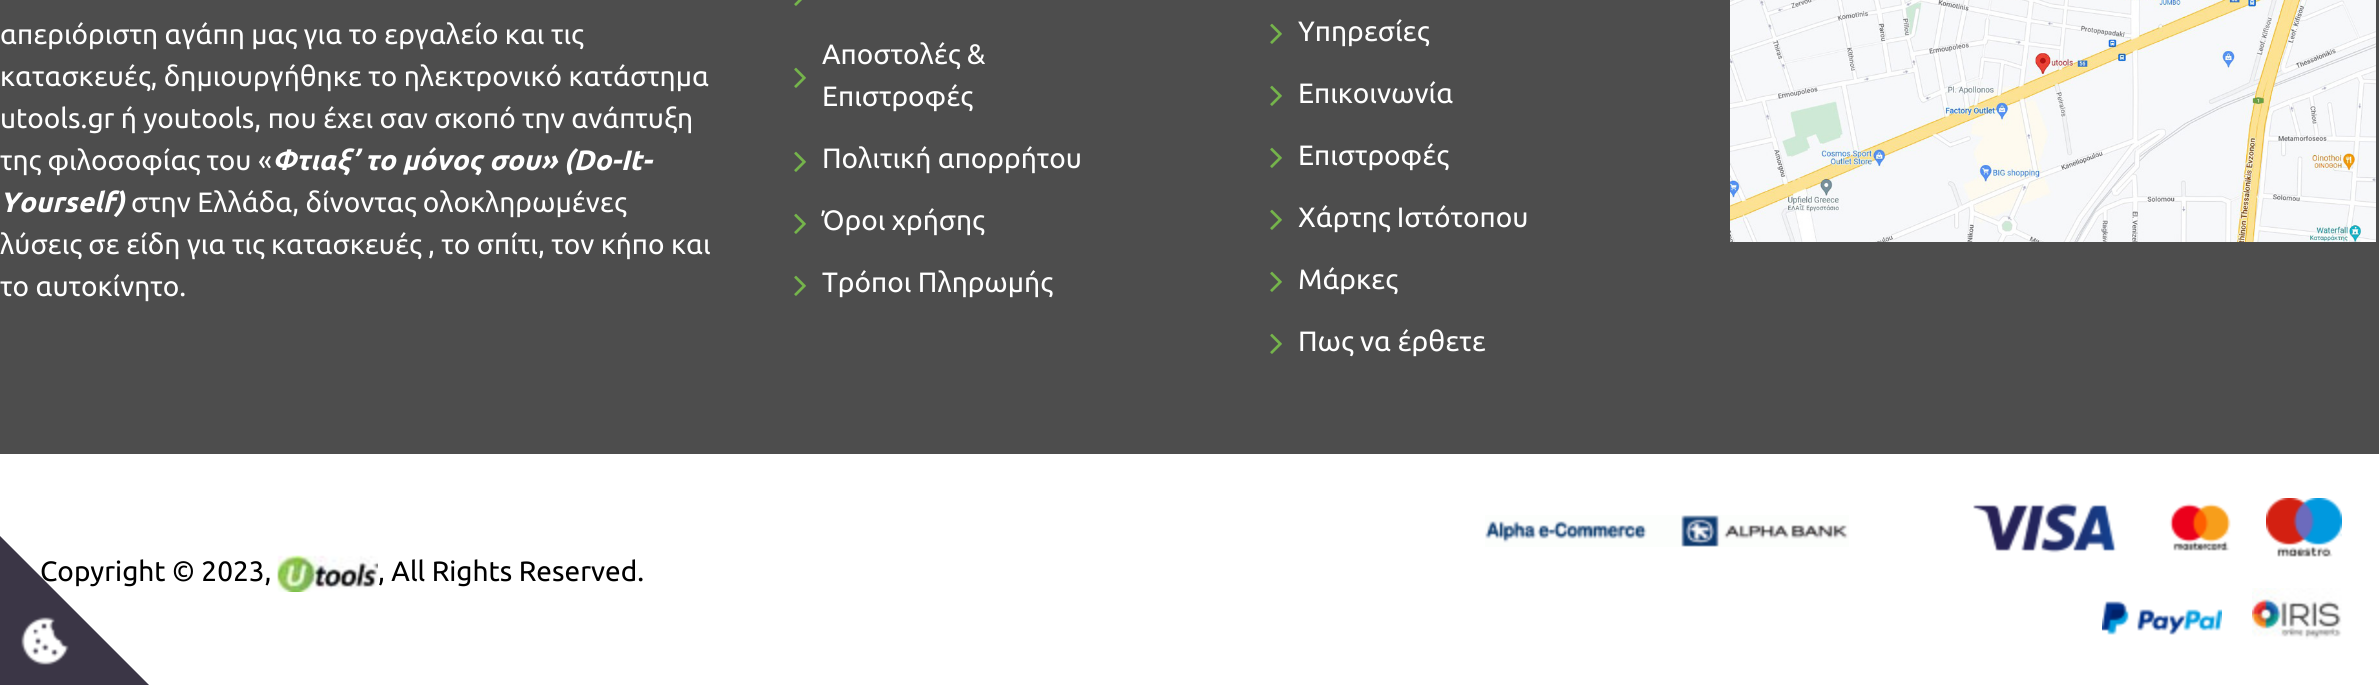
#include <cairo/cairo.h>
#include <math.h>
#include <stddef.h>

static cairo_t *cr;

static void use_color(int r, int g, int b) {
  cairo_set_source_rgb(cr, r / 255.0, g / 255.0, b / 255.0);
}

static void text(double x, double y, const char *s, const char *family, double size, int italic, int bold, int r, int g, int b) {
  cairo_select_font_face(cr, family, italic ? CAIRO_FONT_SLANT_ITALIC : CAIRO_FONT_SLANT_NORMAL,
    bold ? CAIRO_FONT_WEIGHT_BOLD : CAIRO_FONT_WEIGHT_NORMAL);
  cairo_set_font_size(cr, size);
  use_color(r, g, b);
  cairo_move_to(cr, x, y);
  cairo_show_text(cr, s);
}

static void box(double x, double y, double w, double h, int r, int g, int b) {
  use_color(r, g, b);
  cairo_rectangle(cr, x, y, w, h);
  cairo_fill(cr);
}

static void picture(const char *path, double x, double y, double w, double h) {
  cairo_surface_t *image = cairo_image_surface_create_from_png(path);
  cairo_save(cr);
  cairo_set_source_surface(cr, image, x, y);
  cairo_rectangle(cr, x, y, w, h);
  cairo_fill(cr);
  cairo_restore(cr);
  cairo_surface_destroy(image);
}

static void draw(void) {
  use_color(77, 77, 77);
  cairo_paint(cr);
  picture("img_01.png", 794, 0, 8, 6);
  picture("img_02.png", 794, 67, 12, 21);
  picture("img_02.png", 794, 151, 12, 21);
  picture("img_02.png", 794, 213, 12, 21);
  picture("img_02.png", 794, 275, 12, 21);
  picture("img_02.png", 1270, 23, 12, 21);
  picture("img_02.png", 1270, 85, 12, 21);
  picture("img_02.png", 1270, 147, 12, 21);
  picture("img_02.png", 1270, 209, 12, 21);
  picture("img_02.png", 1270, 271, 12, 21);
  picture("img_02.png", 1270, 333, 12, 21);
  picture("img_03.png", 1730, 0, 646, 242);
  box(0, 454, 2379, 231, 255, 255, 255);
  picture("img_04.png", 277, 555, 101, 37);
  picture("img_05.png", 1485, 515, 364, 32);
  picture("img_06.png", 1973, 503, 144, 50);
  picture("img_07.png", 2169, 503, 62, 48);
  picture("img_08.png", 2266, 498, 76, 59);
  picture("img_09.png", 2102, 601, 120, 34);
  picture("img_10.png", 2252, 588, 90, 52);
  text(0, 44, "απεριόριστη αγάπη μας για το εργαλείο και τις", "Ubuntu", 28, 0, 0, 255, 255, 255);
  text(0, 86, "κατασκευές, δημιουργήθηκε το ηλεκτρονικό κατάστημα", "Ubuntu", 28, 0, 0, 255, 255, 255);
  text(0, 128, "utools.gr ή youtools, που έχει σαν σκοπό την ανάπτυξη", "Ubuntu", 28, 0, 0, 255, 255, 255);
  text(0, 170, "της φιλοσοφίας του «", "Ubuntu", 28, 0, 0, 255, 255, 255);
  text(272, 170, "Φτιαξ’ το μόνος σου» (Do-It-", "Ubuntu", 28, 1, 1, 255, 255, 255);
  text(0, 212, "Yourself)", "Ubuntu", 28, 1, 1, 255, 255, 255);
  text(131, 212, "στην Ελλάδα, δίνοντας ολοκληρωμένες", "Ubuntu", 28, 0, 0, 255, 255, 255);
  text(0, 254, "λύσεις σε είδη για τις κατασκευές , το σπίτι, τον κήπο και", "Ubuntu", 28, 0, 0, 255, 255, 255);
  text(0, 296, "το αυτοκίνητο.", "Ubuntu", 28, 0, 0, 255, 255, 255);
  text(822, 64, "Αποστολές &", "Ubuntu", 28, 0, 0, 255, 255, 255);
  text(822, 106, "Επιστροφές", "Ubuntu", 28, 0, 0, 255, 255, 255);
  text(822, 168, "Πολιτική απορρήτου", "Ubuntu", 28, 0, 0, 255, 255, 255);
  text(822, 230, "Όροι χρήσης", "Ubuntu", 28, 0, 0, 255, 255, 255);
  text(822, 292, "Τρόποι Πληρωμής", "Ubuntu", 28, 0, 0, 255, 255, 255);
  text(1298, 41, "Υπηρεσίες", "Ubuntu", 28, 0, 0, 255, 255, 255);
  text(1298, 103, "Επικοινωνία", "Ubuntu", 28, 0, 0, 255, 255, 255);
  text(1298, 165, "Επιστροφές", "Ubuntu", 28, 0, 0, 255, 255, 255);
  text(1298, 227, "Χάρτης Ιστότοπου", "Ubuntu", 28, 0, 0, 255, 255, 255);
  text(1298, 289, "Μάρκες", "Ubuntu", 28, 0, 0, 255, 255, 255);
  text(1298, 351, "Πως να έρθετε", "Ubuntu", 28, 0, 0, 255, 255, 255);
  text(40, 581, "Copyright © 2023,", "Ubuntu", 28, 0, 0, 0, 0, 0);
  text(378, 581, ", All Rights Reserved.", "Ubuntu", 28, 0, 0, 0, 0, 0);
  use_color(59, 54, 70);
  cairo_new_path(cr);
  cairo_move_to(cr, 150, 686);
  cairo_line_to(cr, 0, 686);
  cairo_line_to(cr, 0, 536);
  cairo_close_path(cr);
  cairo_fill(cr);
  picture("img_11.png", 21, 617, 48, 48);
}

int main(void) {
  cairo_surface_t *surface = cairo_image_surface_create(CAIRO_FORMAT_RGB24, 2379, 685);
  cr = cairo_create(surface);
  cairo_font_options_t *options = cairo_font_options_create();
  cairo_font_options_set_hint_metrics(options, CAIRO_HINT_METRICS_OFF);
  cairo_font_options_set_hint_style(options, CAIRO_HINT_STYLE_NONE);
  cairo_set_font_options(cr, options);
  cairo_set_miter_limit(cr, 4);
  draw();
  cairo_surface_write_to_png(surface, "out.png");
  cairo_font_options_destroy(options);
  cairo_destroy(cr);
  cairo_surface_destroy(surface);
  return 0;
}
